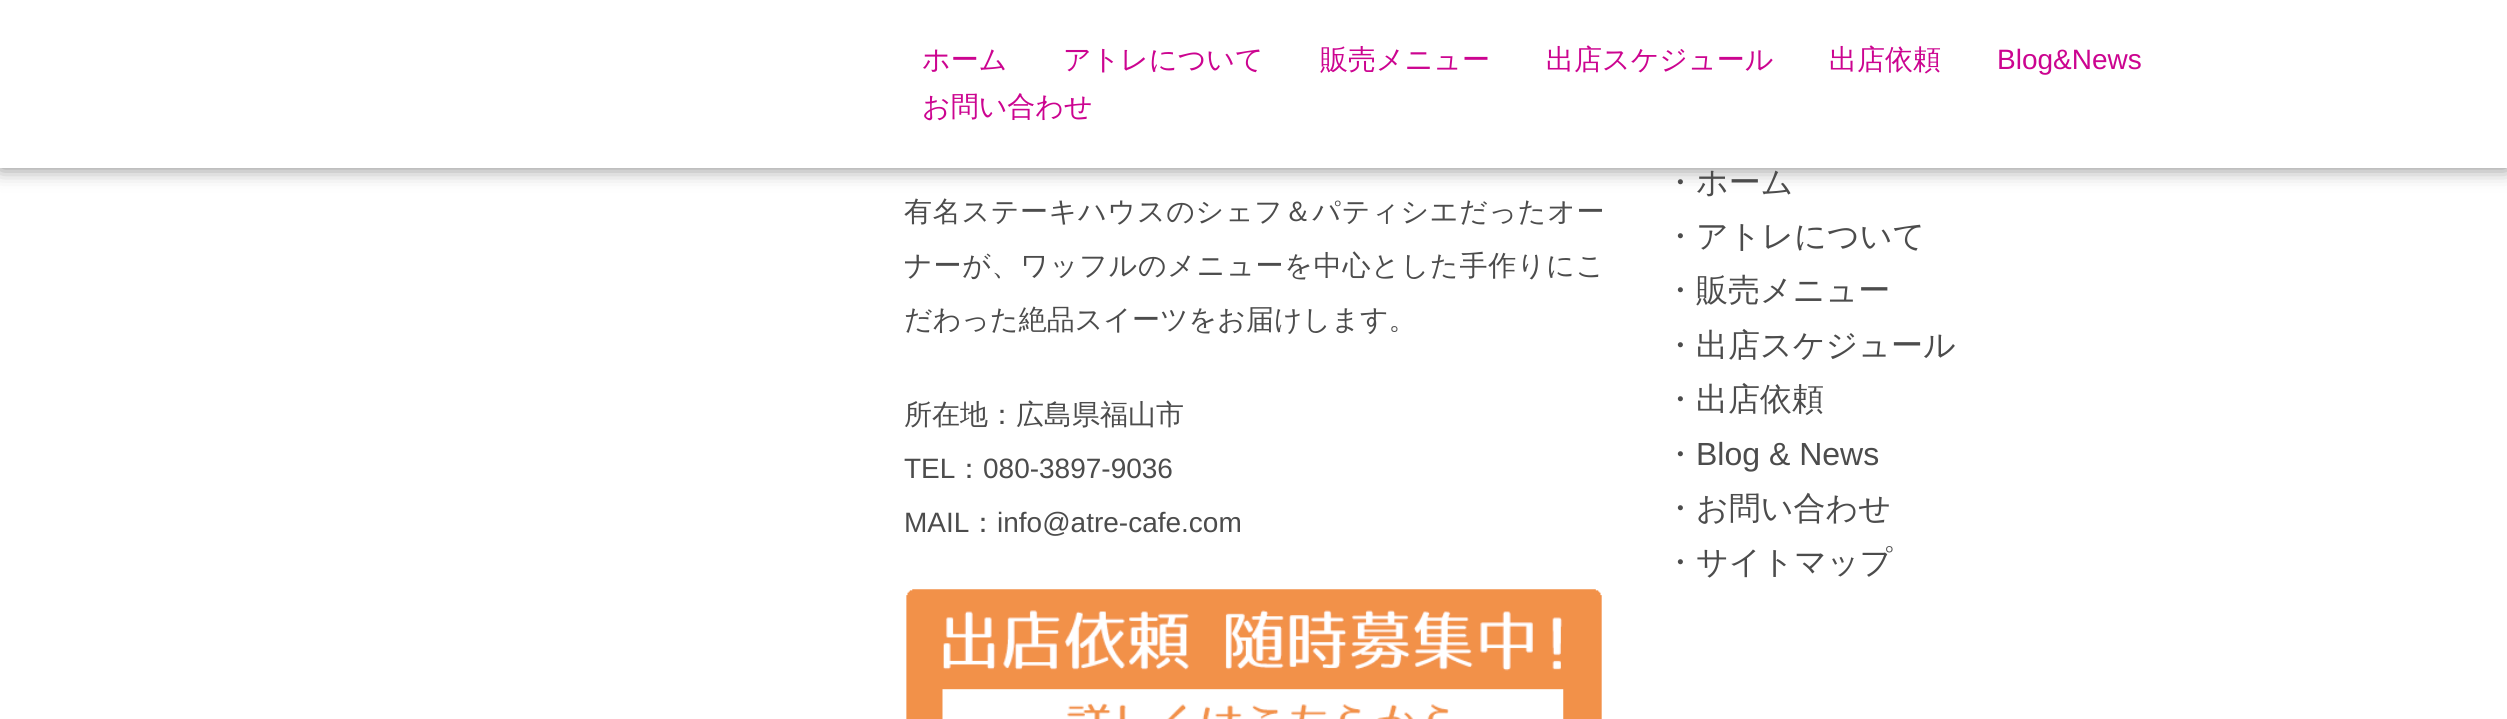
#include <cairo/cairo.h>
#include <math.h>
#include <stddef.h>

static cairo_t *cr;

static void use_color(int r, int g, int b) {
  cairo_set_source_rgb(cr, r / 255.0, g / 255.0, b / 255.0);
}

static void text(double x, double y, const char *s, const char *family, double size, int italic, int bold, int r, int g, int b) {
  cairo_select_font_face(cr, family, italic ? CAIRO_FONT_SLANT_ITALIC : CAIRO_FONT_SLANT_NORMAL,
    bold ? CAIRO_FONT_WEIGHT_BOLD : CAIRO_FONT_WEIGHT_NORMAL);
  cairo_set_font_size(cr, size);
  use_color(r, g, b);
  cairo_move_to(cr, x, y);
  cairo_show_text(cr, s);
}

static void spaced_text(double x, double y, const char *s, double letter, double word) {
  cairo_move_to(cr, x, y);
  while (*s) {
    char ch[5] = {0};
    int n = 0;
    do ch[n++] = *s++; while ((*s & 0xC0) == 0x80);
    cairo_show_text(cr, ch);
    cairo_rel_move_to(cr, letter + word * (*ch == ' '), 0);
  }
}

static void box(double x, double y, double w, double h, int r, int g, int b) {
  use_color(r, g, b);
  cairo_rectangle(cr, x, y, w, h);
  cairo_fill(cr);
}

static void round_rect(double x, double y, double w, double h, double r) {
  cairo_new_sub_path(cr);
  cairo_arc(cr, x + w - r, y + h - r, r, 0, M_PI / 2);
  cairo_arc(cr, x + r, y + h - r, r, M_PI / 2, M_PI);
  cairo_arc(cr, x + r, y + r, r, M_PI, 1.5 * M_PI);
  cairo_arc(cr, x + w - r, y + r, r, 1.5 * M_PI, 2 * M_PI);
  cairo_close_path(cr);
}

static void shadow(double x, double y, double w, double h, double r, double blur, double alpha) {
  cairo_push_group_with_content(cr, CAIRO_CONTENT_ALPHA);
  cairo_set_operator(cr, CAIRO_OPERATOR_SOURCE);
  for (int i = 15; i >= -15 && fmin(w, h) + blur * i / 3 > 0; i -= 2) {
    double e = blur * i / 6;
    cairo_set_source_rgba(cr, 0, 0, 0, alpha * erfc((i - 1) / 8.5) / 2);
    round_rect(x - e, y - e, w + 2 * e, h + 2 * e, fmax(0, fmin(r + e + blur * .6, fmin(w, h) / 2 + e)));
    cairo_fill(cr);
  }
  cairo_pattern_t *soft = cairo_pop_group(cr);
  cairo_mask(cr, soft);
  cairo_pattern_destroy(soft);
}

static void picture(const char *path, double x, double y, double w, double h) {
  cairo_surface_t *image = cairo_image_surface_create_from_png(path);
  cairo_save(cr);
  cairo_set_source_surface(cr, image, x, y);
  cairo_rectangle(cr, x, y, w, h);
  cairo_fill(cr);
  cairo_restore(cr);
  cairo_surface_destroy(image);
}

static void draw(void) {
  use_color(255, 255, 255);
  cairo_paint(cr);
  use_color(0, 0, 0);
  shadow(0, 0, 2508, 168, 0, 10, 0.5);
  box(0, 0, 2507, 168, 255, 255, 255);
  picture("img_01.png", 906, 589, 696, 130);
  text(922, 69, "ホーム", "WenQuanYi Zen Hei Medium", 28, 0, 0, 204, 4, 144);
  text(1063, 69, "アトレについて", "WenQuanYi Zen Hei Medium", 28, 0, 0, 204, 4, 144);
  text(1320, 69, "販売メニュー", "WenQuanYi Zen Hei Medium", 28, 0, 0, 204, 4, 144);
  text(1546, 69, "出店スケジュール", "WenQuanYi Zen Hei Medium", 28, 0, 0, 204, 4, 144);
  text(1829, 69, "出店依頼", "WenQuanYi Zen Hei Medium", 28, 0, 0, 204, 4, 144);
  text(1997, 69, "Blog&News", "Liberation Sans", 28, 0, 0, 204, 4, 144);
  text(922, 116, "お問い合わせ", "WenQuanYi Zen Hei Medium", 28, 0, 0, 204, 4, 144);
  use_color(76, 76, 76);
  spaced_text(904, 221, "有名ステーキハウスのシェフ＆パティシエだったオー", 0.7, 0);
  spaced_text(904, 275, "ナーが、ワッフルのメニューを中心とした手作りにこ", 0.75, 0);
  text(904, 329, "だわった絶品スイーツをお届けします。", "WenQuanYi Zen Hei Medium", 28, 0, 0, 76, 76, 76);
  text(904, 424, "所在地：広島県福山市", "WenQuanYi Zen Hei Medium", 28, 0, 0, 76, 76, 76);
  text(904, 478, "TEL", "Liberation Sans", 28, 0, 0, 76, 76, 76);
  text(955, 478, "：", "WenQuanYi Zen Hei Medium", 28, 0, 0, 76, 76, 76);
  text(983, 478, "080-3897-9036", "Liberation Sans", 28, 0, 0, 76, 76, 76);
  text(904, 532, "MAIL", "Liberation Sans", 28, 0, 0, 76, 76, 76);
  text(969, 532, "：", "WenQuanYi Zen Hei Medium", 28, 0, 0, 76, 76, 76);
  text(997, 532, "info@atre-cafe.com", "Liberation Sans", 28, 0, 0, 76, 76, 76);
  text(1664, 193, "・ホーム", "WenQuanYi Zen Hei Medium", 32, 0, 0, 76, 76, 76);
  text(1664, 247, "・アトレについて", "WenQuanYi Zen Hei Medium", 32, 0, 0, 76, 76, 76);
  text(1664, 301, "・販売メニュー", "WenQuanYi Zen Hei Medium", 32, 0, 0, 76, 76, 76);
  text(1664, 356, "・出店スケジュール", "WenQuanYi Zen Hei Medium", 32, 0, 0, 76, 76, 76);
  text(1664, 410, "・出店依頼", "WenQuanYi Zen Hei Medium", 32, 0, 0, 76, 76, 76);
  text(1664, 465, "・", "WenQuanYi Zen Hei Medium", 32, 0, 0, 76, 76, 76);
  text(1696, 465, "Blog & News", "Liberation Sans", 32, 0, 0, 76, 76, 76);
  text(1664, 519, "・お問い合わせ", "WenQuanYi Zen Hei Medium", 32, 0, 0, 76, 76, 76);
  text(1664, 573, "・サイトマップ", "WenQuanYi Zen Hei Medium", 32, 0, 0, 76, 76, 76);
}

int main(void) {
  cairo_surface_t *surface = cairo_image_surface_create(CAIRO_FORMAT_RGB24, 2507, 719);
  cr = cairo_create(surface);
  cairo_font_options_t *options = cairo_font_options_create();
  cairo_font_options_set_hint_metrics(options, CAIRO_HINT_METRICS_OFF);
  cairo_font_options_set_hint_style(options, CAIRO_HINT_STYLE_NONE);
  cairo_set_font_options(cr, options);
  cairo_set_miter_limit(cr, 4);
  draw();
  cairo_surface_write_to_png(surface, "out.png");
  cairo_font_options_destroy(options);
  cairo_destroy(cr);
  cairo_surface_destroy(surface);
  return 0;
}
